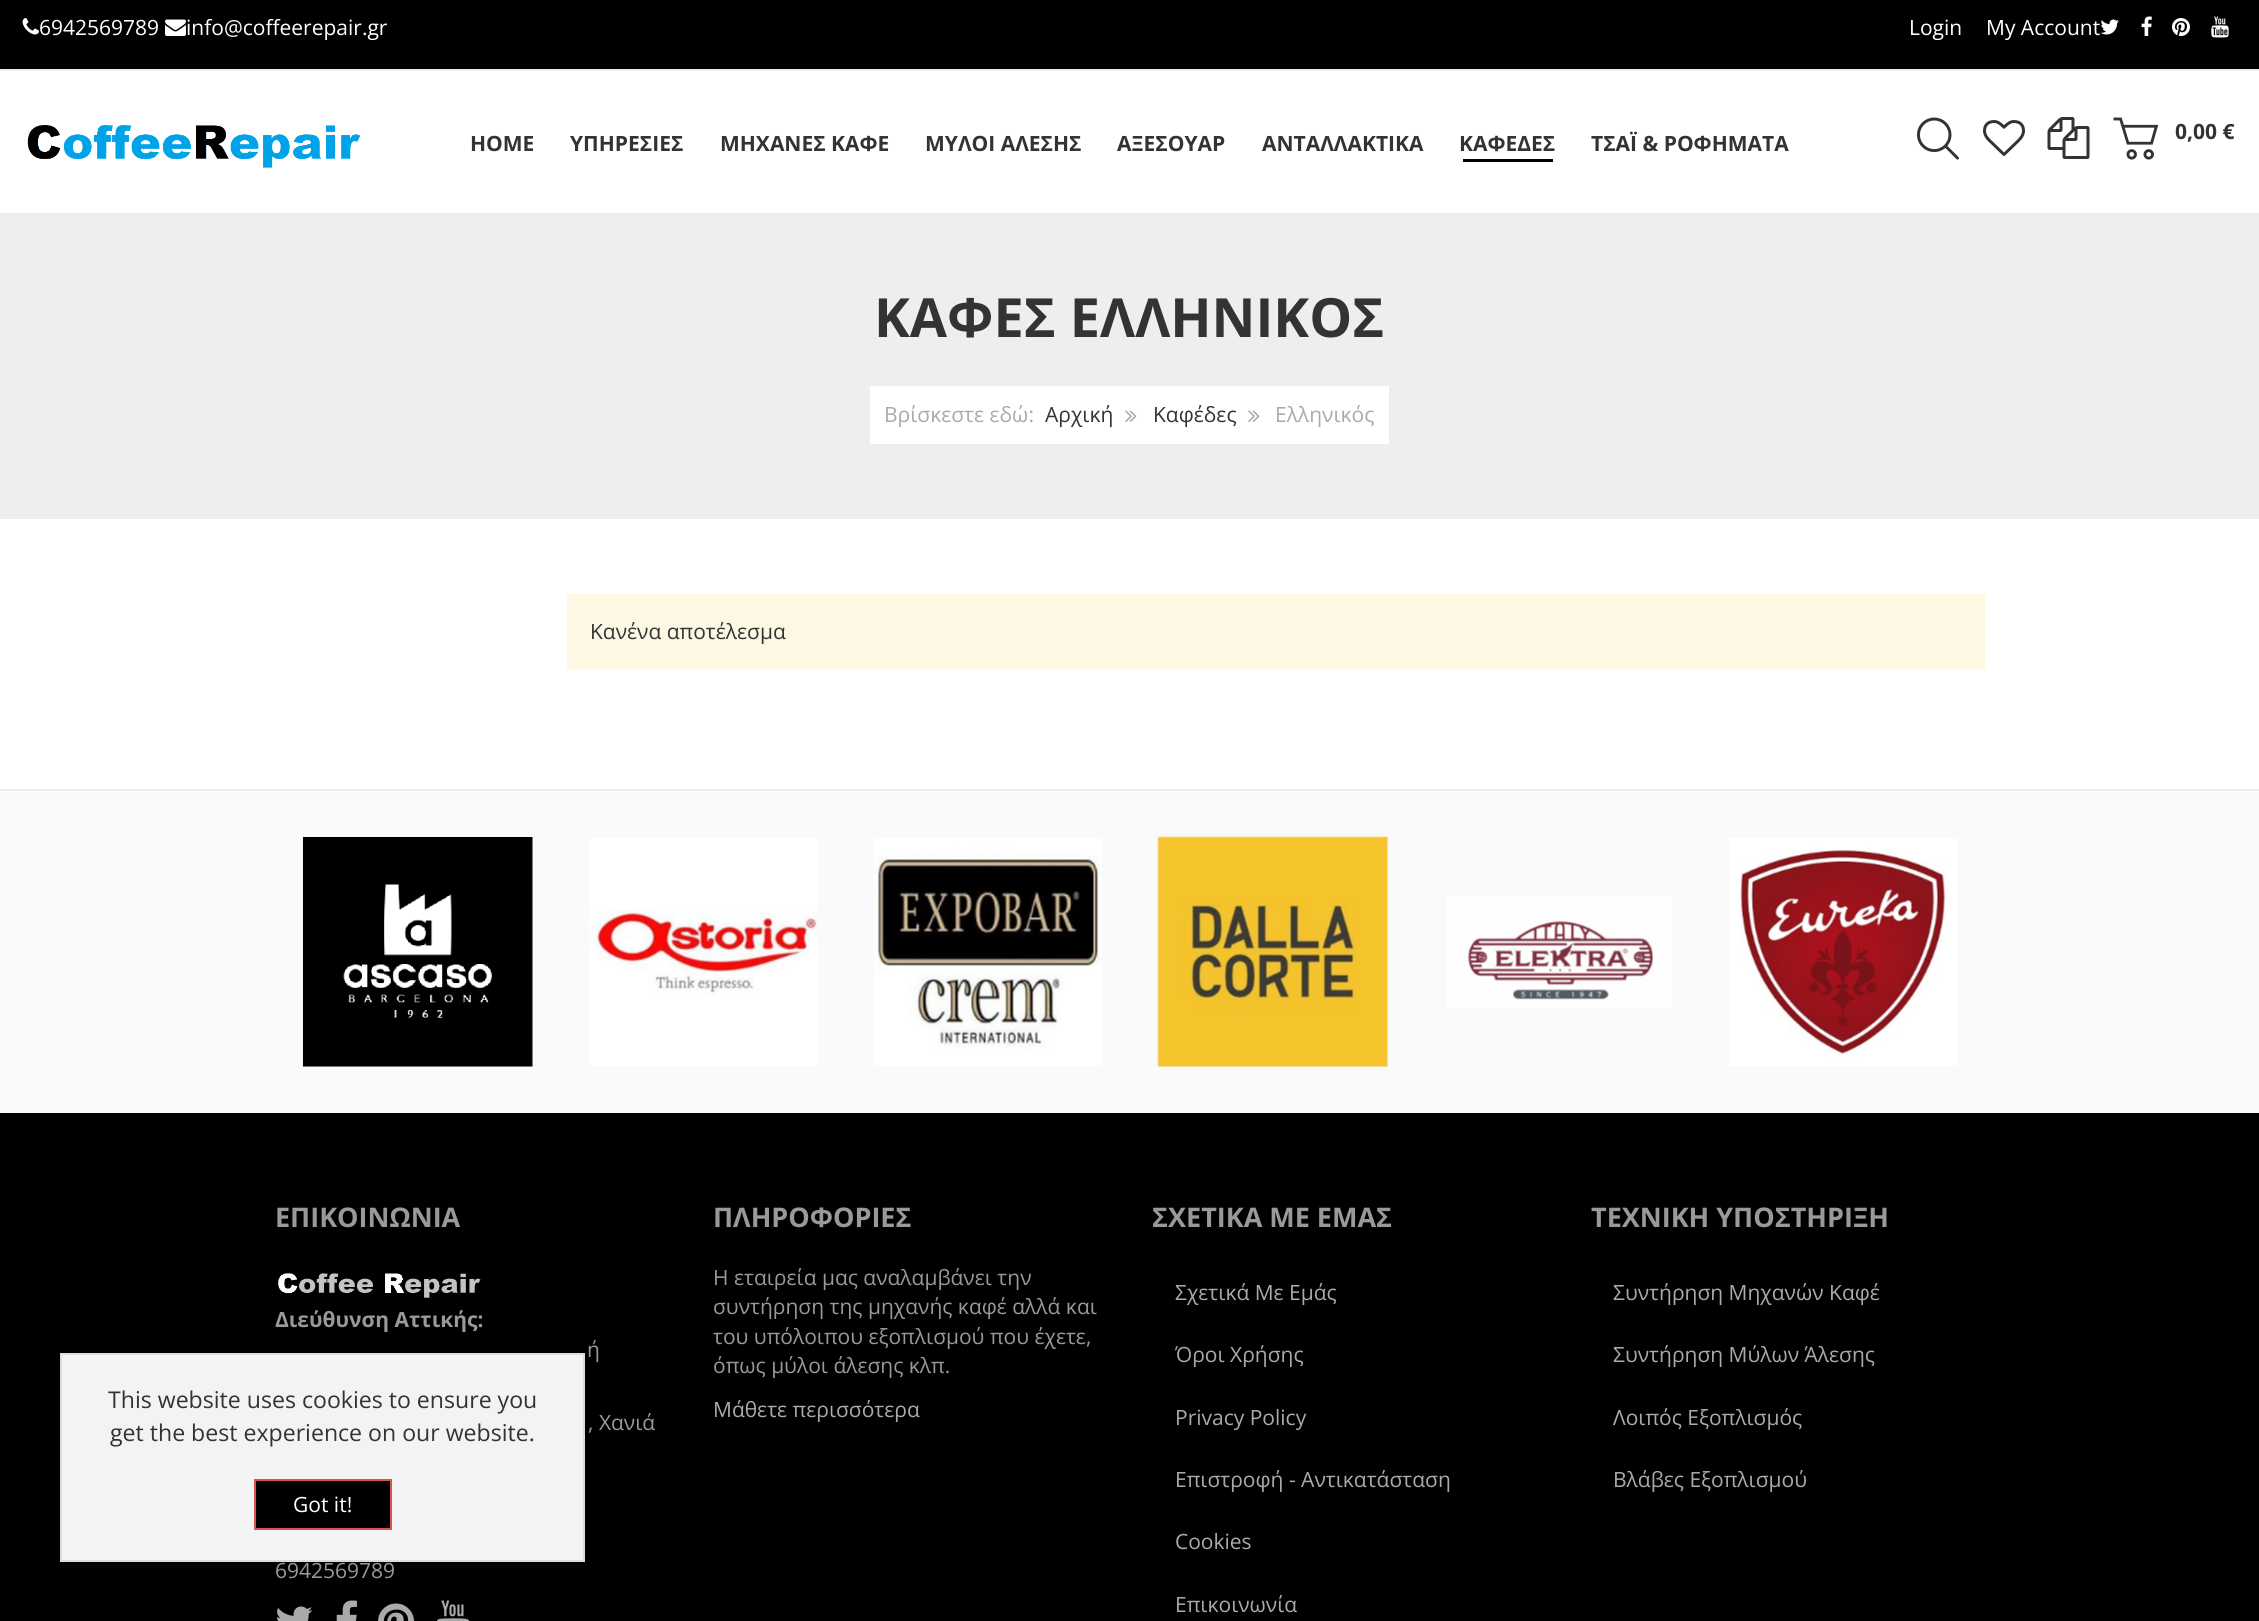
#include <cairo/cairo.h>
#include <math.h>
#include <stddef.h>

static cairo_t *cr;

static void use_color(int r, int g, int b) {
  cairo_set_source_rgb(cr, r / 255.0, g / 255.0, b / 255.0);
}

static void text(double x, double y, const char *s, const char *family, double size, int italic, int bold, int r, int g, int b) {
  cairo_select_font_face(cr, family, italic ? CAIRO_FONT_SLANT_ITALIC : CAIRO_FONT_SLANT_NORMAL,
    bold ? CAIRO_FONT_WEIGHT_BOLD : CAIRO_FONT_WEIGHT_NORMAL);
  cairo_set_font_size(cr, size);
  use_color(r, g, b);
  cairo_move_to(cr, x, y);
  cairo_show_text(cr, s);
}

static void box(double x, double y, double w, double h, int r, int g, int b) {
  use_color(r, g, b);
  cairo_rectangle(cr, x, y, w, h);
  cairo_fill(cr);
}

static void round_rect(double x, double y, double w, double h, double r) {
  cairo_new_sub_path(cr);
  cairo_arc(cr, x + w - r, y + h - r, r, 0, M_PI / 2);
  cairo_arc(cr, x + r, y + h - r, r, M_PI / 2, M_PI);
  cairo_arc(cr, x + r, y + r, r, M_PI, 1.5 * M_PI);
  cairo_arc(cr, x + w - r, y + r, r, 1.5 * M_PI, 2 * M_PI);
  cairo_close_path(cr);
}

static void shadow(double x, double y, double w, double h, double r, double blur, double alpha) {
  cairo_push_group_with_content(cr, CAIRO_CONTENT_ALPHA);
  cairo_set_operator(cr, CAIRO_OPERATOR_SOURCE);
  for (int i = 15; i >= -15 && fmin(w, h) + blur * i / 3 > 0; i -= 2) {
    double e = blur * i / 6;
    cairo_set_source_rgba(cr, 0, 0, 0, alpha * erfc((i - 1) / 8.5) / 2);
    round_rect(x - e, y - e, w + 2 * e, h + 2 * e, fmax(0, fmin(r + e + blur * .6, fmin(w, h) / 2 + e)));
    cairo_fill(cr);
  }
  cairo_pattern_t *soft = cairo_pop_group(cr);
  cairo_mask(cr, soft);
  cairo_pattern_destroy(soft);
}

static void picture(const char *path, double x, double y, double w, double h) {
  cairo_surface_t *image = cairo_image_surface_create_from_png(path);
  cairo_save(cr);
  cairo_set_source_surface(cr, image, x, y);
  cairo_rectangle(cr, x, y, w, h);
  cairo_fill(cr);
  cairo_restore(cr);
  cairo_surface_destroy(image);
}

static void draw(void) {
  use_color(255, 255, 255);
  cairo_paint(cr);
  box(0, 0, 2259, 69, 0, 0, 0);
  box(0, 69, 2259, 2, 238, 238, 238);
  picture("img_01.png", 22, 18, 17, 17);
  picture("img_02.png", 165, 19, 21, 17);
  picture("img_03.png", 2100, 19, 19, 16);
  picture("img_04.png", 2141, 16, 11, 20);
  picture("img_05.png", 2172, 18, 18, 18);
  picture("img_06.png", 2211, 16, 18, 22);
  picture("img_07.png", 27, 125, 334, 43);
  box(1463, 159, 90, 3, 0, 0, 0);
  picture("img_08.png", 1917, 117, 42, 43);
  picture("img_09.png", 1983, 120, 42, 36);
  picture("img_10.png", 2047, 117, 43, 42);
  picture("img_11.png", 2113, 117, 46, 43);
  box(0, 213, 2259, 306, 238, 238, 238);
  box(870, 386, 519, 58, 255, 255, 255);
  picture("img_12.png", 1125, 410, 12, 12);
  picture("img_12.png", 1248, 410, 12, 12);
  box(567, 594, 1418, 75, 252, 248, 227);
  box(0, 791, 2259, 322, 250, 250, 250);
  box(0, 789, 2259, 2, 238, 238, 238);
  picture("img_13.png", 302, 836, 231, 231);
  picture("img_14.png", 589, 838, 229, 228);
  picture("img_15.png", 874, 838, 228, 228);
  picture("img_16.png", 1157, 836, 231, 231);
  picture("img_17.png", 1447, 895, 225, 113);
  picture("img_18.png", 1729, 838, 228, 228);
  box(0, 1113, 2259, 508, 0, 0, 0);
  picture("img_19.png", 278, 1273, 203, 25);
  picture("img_20.png", 277, 1606, 36, 15);
  picture("img_21.png", 336, 1600, 21, 21);
  picture("img_22.png", 378, 1603, 36, 18);
  picture("img_23.png", 436, 1600, 34, 21);
  use_color(0, 0, 0);
  shadow(60, 1362, 525, 209, 0, 10, 0.23);
  use_color(243, 243, 243);
  cairo_rectangle(cr, 61, 1354, 523, 207);
  cairo_fill_preserve(cr);
  use_color(221, 221, 221);
  cairo_stroke(cr);
  use_color(0, 0, 0);
  cairo_rectangle(cr, 255, 1480, 136, 49);
  cairo_fill_preserve(cr);
  use_color(217, 83, 79);
  cairo_stroke(cr);
  text(39, 35, "6942569789", "Open Sans", 21, 0, 0, 255, 255, 255);
  text(186, 35, "info@coffeerepair.gr", "Open Sans", 21, 0, 0, 255, 255, 255);
  text(1909, 35, "Login", "Open Sans", 21, 0, 0, 255, 255, 255);
  text(1986, 35, "My Account", "Open Sans", 21, 0, 0, 255, 255, 255);
  text(470, 151, "HOME", "Open Sans", 21, 0, 1, 51, 51, 51);
  text(570, 151, "ΥΠΗΡΕΣΙΕΣ", "Open Sans", 21, 0, 1, 51, 51, 51);
  text(720, 151, "ΜΗΧΑΝΕΣ ΚΑΦΕ", "Open Sans", 21, 0, 1, 51, 51, 51);
  text(925, 151, "ΜΥΛΟΙ ΑΛΕΣΗΣ", "Open Sans", 21, 0, 1, 51, 51, 51);
  text(1117, 151, "ΑΞΕΣΟΥΑΡ", "Open Sans", 21, 0, 1, 51, 51, 51);
  text(1262, 151, "ΑΝΤΑΛΛΑΚΤΙΚΑ", "Open Sans", 21, 0, 1, 51, 51, 51);
  text(1459, 151, "ΚΑΦΕΔΕΣ", "Open Sans", 21, 0, 1, 51, 51, 51);
  text(1591, 151, "ΤΣΑΪ & ΡΟΦΗΜΑΤΑ", "Open Sans", 21, 0, 1, 51, 51, 51);
  text(2175, 139, "0,00 €", "Open Sans", 21, 0, 1, 51, 51, 51);
  text(874, 337, "ΚΑΦΕΣ ΕΛΛΗΝΙΚΟΣ", "Open Sans", 54, 0, 1, 51, 51, 51);
  text(884, 422, "Βρίσκεστε εδώ:", "Open Sans", 21, 0, 0, 170, 170, 170);
  text(1045, 422, "Αρχική", "Open Sans", 21, 0, 0, 51, 51, 51);
  text(1153, 422, "Καφέδες", "Open Sans", 21, 0, 0, 51, 51, 51);
  text(1275, 422, "Ελληνικός", "Open Sans", 21, 0, 0, 170, 170, 170);
  text(590, 639, "Κανένα αποτέλεσμα", "Open Sans", 21, 0, 0, 51, 51, 51);
  text(275, 1227, "ΕΠΙΚΟΙΝΩΝΙΑ", "Open Sans", 27, 0, 1, 153, 153, 153);
  text(275, 1327, "Διεύθυνση Αττικής:", "Open Sans", 21, 0, 1, 153, 153, 153);
  text(587, 1357, "ή", "Open Sans", 21, 0, 0, 153, 153, 153);
  text(588, 1430, ", Χανιά", "Open Sans", 21, 0, 0, 153, 153, 153);
  text(275, 1578, "6942569789", "Open Sans", 21, 0, 0, 153, 153, 153);
  text(713, 1227, "ΠΛΗΡΟΦΟΡΙΕΣ", "Open Sans", 27, 0, 1, 153, 153, 153);
  text(713, 1285, "Η εταιρεία μας αναλαμβάνει την", "Open Sans", 21, 0, 0, 153, 153, 153);
  text(713, 1314, "συντήρηση της μηχανής καφέ αλλά και", "Open Sans", 21, 0, 0, 153, 153, 153);
  text(713, 1344, "του υπόλοιπου εξοπλισμού που έχετε,", "Open Sans", 21, 0, 0, 153, 153, 153);
  text(713, 1373, "όπως μύλοι άλεσης κλπ.", "Open Sans", 21, 0, 0, 153, 153, 153);
  text(713, 1417, "Μάθετε περισσότερα", "Open Sans", 21, 0, 0, 170, 170, 170);
  text(1152, 1227, "ΣΧΕΤΙΚΑ ΜΕ ΕΜΑΣ", "Open Sans", 27, 0, 1, 153, 153, 153);
  text(1175, 1300, "Σχετικά Με Εμάς", "Open Sans", 21, 0, 0, 170, 170, 170);
  text(1175, 1362, "Όροι Χρήσης", "Open Sans", 21, 0, 0, 170, 170, 170);
  text(1175, 1425, "Privacy Policy", "Open Sans", 21, 0, 0, 170, 170, 170);
  text(1175, 1487, "Επιστροφή - Αντικατάσταση", "Open Sans", 21, 0, 0, 170, 170, 170);
  text(1175, 1549, "Cookies", "Open Sans", 21, 0, 0, 170, 170, 170);
  text(1175, 1612, "Επικοινωνία", "Open Sans", 21, 0, 0, 170, 170, 170);
  text(1591, 1227, "ΤΕΧΝΙΚΗ ΥΠΟΣΤΗΡΙΞΗ", "Open Sans", 27, 0, 1, 153, 153, 153);
  text(1613, 1300, "Συντήρηση Μηχανών Καφέ", "Open Sans", 21, 0, 0, 170, 170, 170);
  text(1613, 1362, "Συντήρηση Μύλων Άλεσης", "Open Sans", 21, 0, 0, 170, 170, 170);
  text(1613, 1425, "Λοιπός Εξοπλισμός", "Open Sans", 21, 0, 0, 170, 170, 170);
  text(1613, 1487, "Βλάβες Εξοπλισμού", "Open Sans", 21, 0, 0, 170, 170, 170);
  text(108, 1408, "This website uses cookies to ensure you", "Open Sans", 23.1, 0, 0, 51, 51, 51);
  text(110, 1441, "get the best experience on our website.", "Open Sans", 23.1, 0, 0, 51, 51, 51);
  text(293, 1512, "Got it!", "Open Sans", 21, 0, 0, 255, 255, 255);
}

int main(void) {
  cairo_surface_t *surface = cairo_image_surface_create(CAIRO_FORMAT_RGB24, 2259, 1621);
  cr = cairo_create(surface);
  cairo_font_options_t *options = cairo_font_options_create();
  cairo_font_options_set_hint_metrics(options, CAIRO_HINT_METRICS_OFF);
  cairo_font_options_set_hint_style(options, CAIRO_HINT_STYLE_NONE);
  cairo_set_font_options(cr, options);
  cairo_set_miter_limit(cr, 4);
  draw();
  cairo_surface_write_to_png(surface, "out.png");
  cairo_font_options_destroy(options);
  cairo_destroy(cr);
  cairo_surface_destroy(surface);
  return 0;
}
